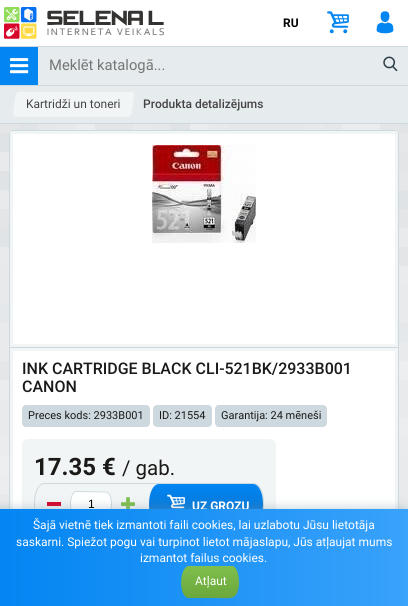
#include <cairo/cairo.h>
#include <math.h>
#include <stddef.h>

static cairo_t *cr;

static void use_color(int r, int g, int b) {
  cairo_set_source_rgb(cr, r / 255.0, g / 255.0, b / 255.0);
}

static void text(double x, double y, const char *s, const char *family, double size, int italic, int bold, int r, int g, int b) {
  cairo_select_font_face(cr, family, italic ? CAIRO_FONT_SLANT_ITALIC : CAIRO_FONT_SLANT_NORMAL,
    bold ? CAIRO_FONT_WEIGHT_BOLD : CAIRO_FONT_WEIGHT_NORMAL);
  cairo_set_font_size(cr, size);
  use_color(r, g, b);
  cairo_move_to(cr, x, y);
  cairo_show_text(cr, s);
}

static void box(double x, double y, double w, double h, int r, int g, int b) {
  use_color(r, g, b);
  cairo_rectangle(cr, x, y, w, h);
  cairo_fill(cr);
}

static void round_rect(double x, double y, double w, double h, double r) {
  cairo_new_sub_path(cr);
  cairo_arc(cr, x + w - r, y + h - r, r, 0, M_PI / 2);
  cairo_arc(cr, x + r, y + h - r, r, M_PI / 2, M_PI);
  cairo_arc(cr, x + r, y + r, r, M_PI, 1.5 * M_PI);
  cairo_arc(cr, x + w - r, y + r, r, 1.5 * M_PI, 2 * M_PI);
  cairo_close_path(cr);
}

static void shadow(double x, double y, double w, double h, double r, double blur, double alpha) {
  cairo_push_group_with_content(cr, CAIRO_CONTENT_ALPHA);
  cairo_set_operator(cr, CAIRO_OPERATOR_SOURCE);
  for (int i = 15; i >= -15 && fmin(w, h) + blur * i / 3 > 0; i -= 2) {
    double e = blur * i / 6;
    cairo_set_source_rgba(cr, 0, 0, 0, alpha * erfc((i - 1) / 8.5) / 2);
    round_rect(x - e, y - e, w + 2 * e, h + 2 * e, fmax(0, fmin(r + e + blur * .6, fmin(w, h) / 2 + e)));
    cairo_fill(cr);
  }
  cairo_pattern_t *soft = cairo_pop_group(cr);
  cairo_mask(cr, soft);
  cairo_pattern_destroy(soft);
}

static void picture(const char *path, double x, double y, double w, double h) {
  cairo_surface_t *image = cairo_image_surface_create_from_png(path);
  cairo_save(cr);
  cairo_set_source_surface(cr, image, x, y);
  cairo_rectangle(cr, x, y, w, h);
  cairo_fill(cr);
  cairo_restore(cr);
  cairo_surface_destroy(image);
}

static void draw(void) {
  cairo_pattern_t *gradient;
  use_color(255, 255, 255);
  cairo_paint(cr);
  picture("img_01.png", 0, 124, 408, 385);
  box(0, 123, 408, 1, 205, 217, 222);
  picture("img_02.png", 4, 7, 160, 32);
  picture("img_03.png", 327, 11, 22, 23);
  picture("img_04.png", 376, 11, 18, 23);
  box(0, 47, 408, 76, 230, 235, 238);
  box(0, 46, 408, 1, 205, 217, 222);
  box(0, 47, 38, 38, 3, 133, 242);
  picture("img_05.png", 10, 58, 19, 16);
  picture("img_06.png", 383, 56, 15, 16);
  box(0, 85, 408, 1, 205, 217, 222);
  box(24, 92, 99, 25, 242, 245, 246);
  use_color(255, 255, 255);
  round_rect(9, 130, 390, 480, 4);
  cairo_fill(cr);
  round_rect(11.5, 132.5, 385, 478, 1.5);
  use_color(242, 245, 246);
  cairo_set_line_width(cr, 3);
  cairo_stroke(cr);
  round_rect(9.5, 130.5, 389, 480, 3.5);
  use_color(205, 217, 222);
  cairo_set_line_width(cr, 1);
  cairo_stroke(cr);
  cairo_new_path(cr);
  cairo_move_to(cr, 14, 132.5);
  cairo_line_to(cr, 394, 132.5);
  cairo_curve_to(cr, 395.5, 132.5, 396.5, 133.5, 396.5, 135);
  cairo_line_to(cr, 396.5, 345.5);
  cairo_line_to(cr, 11.5, 345.5);
  cairo_line_to(cr, 11.5, 135);
  cairo_curve_to(cr, 11.5, 133.5, 12.5, 132.5, 14, 132.5);
  cairo_close_path(cr);
  use_color(242, 245, 246);
  cairo_set_line_width(cr, 3);
  cairo_stroke(cr);
  box(10, 347, 388, 1, 205, 217, 222);
  picture("img_07.png", 152, 145, 104, 98);
  cairo_new_path(cr);
  cairo_move_to(cr, 11.5, 349.5);
  cairo_line_to(cr, 394, 349.5);
  cairo_curve_to(cr, 395.5, 349.5, 396.5, 350.5, 396.5, 352);
  cairo_line_to(cr, 396.5, 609);
  cairo_curve_to(cr, 396.5, 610.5, 395.5, 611.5, 394, 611.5);
  cairo_line_to(cr, 11.5, 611.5);
  cairo_close_path(cr);
  use_color(242, 245, 246);
  cairo_stroke(cr);
  use_color(205, 217, 222);
  round_rect(22, 405, 128, 22, 4);
  cairo_fill(cr);
  round_rect(153, 405, 59, 22, 4);
  cairo_fill(cr);
  round_rect(215, 405, 112, 22, 4);
  cairo_fill(cr);
  use_color(242, 245, 246);
  round_rect(22, 439, 254, 121, 6);
  cairo_fill(cr);
  cairo_new_path(cr);
  cairo_move_to(cr, 44, 483.5);
  cairo_line_to(cr, 254, 483.5);
  cairo_curve_to(cr, 259, 483.5, 263.5, 492, 263.5, 503);
  cairo_line_to(cr, 263.5, 506);
  cairo_curve_to(cr, 263.5, 517, 259, 525.5, 254, 525.5);
  cairo_line_to(cr, 44, 525.5);
  cairo_curve_to(cr, 39, 525.5, 34.5, 517, 34.5, 506);
  cairo_line_to(cr, 34.5, 503);
  cairo_curve_to(cr, 34.5, 492, 39, 483.5, 44, 483.5);
  cairo_close_path(cr);
  use_color(205, 217, 222);
  cairo_set_line_width(cr, 1);
  cairo_stroke(cr);
  box(47, 502, 14, 4, 216, 0, 39);
  use_color(255, 255, 255);
  cairo_new_path(cr);
  cairo_move_to(cr, 76, 491);
  cairo_line_to(cr, 107, 491);
  cairo_curve_to(cr, 111, 493, 112, 500, 112, 504);
  cairo_curve_to(cr, 112, 508, 111, 515, 107, 517);
  cairo_line_to(cr, 75, 517);
  cairo_curve_to(cr, 68, 514, 68, 491, 76, 491);
  cairo_close_path(cr);
  cairo_fill(cr);
  cairo_new_path(cr);
  cairo_move_to(cr, 76.5, 491.5);
  cairo_line_to(cr, 106.5, 492);
  cairo_curve_to(cr, 111, 493.5, 111.5, 500.5, 111.5, 504);
  cairo_curve_to(cr, 111.5, 507.5, 111, 514.5, 106.5, 516);
  cairo_line_to(cr, 75.5, 516);
  cairo_curve_to(cr, 68.5, 513.5, 69, 491.5, 76.5, 491.5);
  cairo_close_path(cr);
  use_color(205, 217, 222);
  cairo_stroke(cr);
  picture("img_08.png", 121, 497, 14, 12);
  gradient = cairo_pattern_create_linear(206, 484, 206, 525);
  cairo_pattern_add_color_stop_rgba(gradient, 0, 0.012, 0.522, 0.949, 1);
  cairo_pattern_add_color_stop_rgba(gradient, 1, 0.012, 0.435, 0.792, 1);
  cairo_set_source(cr, gradient);
  cairo_pattern_destroy(gradient);
  cairo_new_path(cr);
  cairo_move_to(cr, 159, 484);
  cairo_line_to(cr, 253, 484);
  cairo_curve_to(cr, 259, 484, 263, 493, 263, 504);
  cairo_line_to(cr, 263, 505);
  cairo_curve_to(cr, 263, 516, 259, 525, 253, 525);
  cairo_line_to(cr, 159, 525);
  cairo_curve_to(cr, 153, 525, 149, 516, 149, 505);
  cairo_line_to(cr, 149, 504);
  cairo_curve_to(cr, 149, 493, 153, 484, 159, 484);
  cairo_close_path(cr);
  cairo_fill(cr);
  picture("img_09.png", 167, 494, 18, 15);
  use_color(123, 154, 168);
  shadow(-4, 509, 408, 97, 0, 6, 0.5);
  text(283, 27, "RU", "Roboto", 12, 0, 1, 0, 0, 0);
  text(49, 70, "Meklēt katalogā...", "Roboto", 14.75, 0, 0, 117, 117, 117);
  text(26, 108, "Kartridži un toneri", "Roboto", 12, 0, 0, 68, 68, 68);
  cairo_save(cr);
  cairo_rectangle(cr, 12, 92, 396, 25);
  cairo_clip(cr);
  use_color(242, 245, 246);
  cairo_new_path(cr);
  cairo_move_to(cr, 20, 91.5);
  cairo_line_to(cr, 28, 91.5);
  cairo_line_to(cr, 24.5, 117.5);
  cairo_line_to(cr, 16.5, 117.5);
  cairo_curve_to(cr, 14.5, 117.5, 13, 115.5, 13, 113.5);
  cairo_line_to(cr, 15.5, 95.5);
  cairo_curve_to(cr, 16, 93.5, 18, 91.5, 20, 91.5);
  cairo_close_path(cr);
  cairo_fill(cr);
  cairo_new_path(cr);
  cairo_move_to(cr, 122.5, 91.5);
  cairo_curve_to(cr, 136, 91.5, 135, 90.5, 133, 104.5);
  cairo_curve_to(cr, 131, 118.5, 132.5, 117.5, 119, 117.5);
  cairo_close_path(cr);
  cairo_fill(cr);
  cairo_restore(cr);
  text(143, 108, "Produkta detalizējums", "Roboto Medium", 12, 0, 0, 68, 68, 68);
  text(22, 374, "INK CARTRIDGE BLACK CLI-521BK/2933B001", "Roboto Medium", 16, 0, 0, 27, 26, 25);
  text(22, 392, "CANON", "Roboto Medium", 16, 0, 0, 27, 26, 25);
  text(28, 419, "Preces kods: 2933B001", "Roboto", 11, 0, 0, 27, 26, 25);
  text(159, 419, "ID: 21554", "Roboto", 11, 0, 0, 27, 26, 25);
  text(221, 419, "Garantija: 24 mēneši", "Roboto", 11, 0, 0, 27, 26, 25);
  text(34, 475, "17.35 €", "Roboto", 24, 0, 1, 27, 26, 25);
  text(122, 475, "/ gab.", "Roboto", 20.5, 0, 0, 27, 26, 25);
  text(88, 508, "1", "Liberation Sans", 12, 0, 0, 0, 0, 0);
  text(192, 510, "UZ GROZU", "Roboto", 12, 0, 1, 255, 255, 255);
  gradient = cairo_pattern_create_linear(0, 558, 408, 558);
  cairo_pattern_add_color_stop_rgba(gradient, 0, 0.012, 0.522, 0.949, 1);
  cairo_pattern_add_color_stop_rgba(gradient, 1, 0.224, 0.635, 0.984, 1);
  cairo_set_source(cr, gradient);
  cairo_pattern_destroy(gradient);
  cairo_rectangle(cr, 0, 509, 408, 97);
  cairo_fill(cr);
  text(33, 529, "Šajā vietnē tiek izmantoti faili cookies, lai uzlabotu Jūsu lietotāja", "Roboto", 12, 0, 0, 255, 255, 255);
  text(16, 546, "saskarni. Spiežot pogu vai turpinot lietot mājaslapu, Jūs atļaujat mums", "Roboto", 12, 0, 0, 255, 255, 255);
  text(140, 562, "izmantot failus cookies.", "Roboto", 12, 0, 0, 255, 255, 255);
  gradient = cairo_pattern_create_linear(210, 566, 210, 598);
  cairo_pattern_add_color_stop_rgba(gradient, 0, 0.498, 0.749, 0.302, 1);
  cairo_pattern_add_color_stop_rgba(gradient, 1, 0.42, 0.655, 0.235, 1);
  cairo_set_source(cr, gradient);
  cairo_pattern_destroy(gradient);
  cairo_new_path(cr);
  cairo_move_to(cr, 189, 566);
  cairo_line_to(cr, 233, 566);
  cairo_curve_to(cr, 239, 569, 239, 580, 239, 585);
  cairo_curve_to(cr, 237, 601, 230, 598, 217, 598);
  cairo_line_to(cr, 189, 598);
  cairo_curve_to(cr, 178, 598, 179, 566, 189, 566);
  cairo_close_path(cr);
  cairo_fill(cr);
  text(195, 585, "Atļaut", "Roboto", 12, 0, 0, 255, 255, 255);
}

int main(void) {
  cairo_surface_t *surface = cairo_image_surface_create(CAIRO_FORMAT_RGB24, 408, 606);
  cr = cairo_create(surface);
  cairo_font_options_t *options = cairo_font_options_create();
  cairo_font_options_set_hint_metrics(options, CAIRO_HINT_METRICS_OFF);
  cairo_font_options_set_hint_style(options, CAIRO_HINT_STYLE_NONE);
  cairo_set_font_options(cr, options);
  cairo_set_miter_limit(cr, 4);
  draw();
  cairo_surface_write_to_png(surface, "out.png");
  cairo_font_options_destroy(options);
  cairo_destroy(cr);
  cairo_surface_destroy(surface);
  return 0;
}
